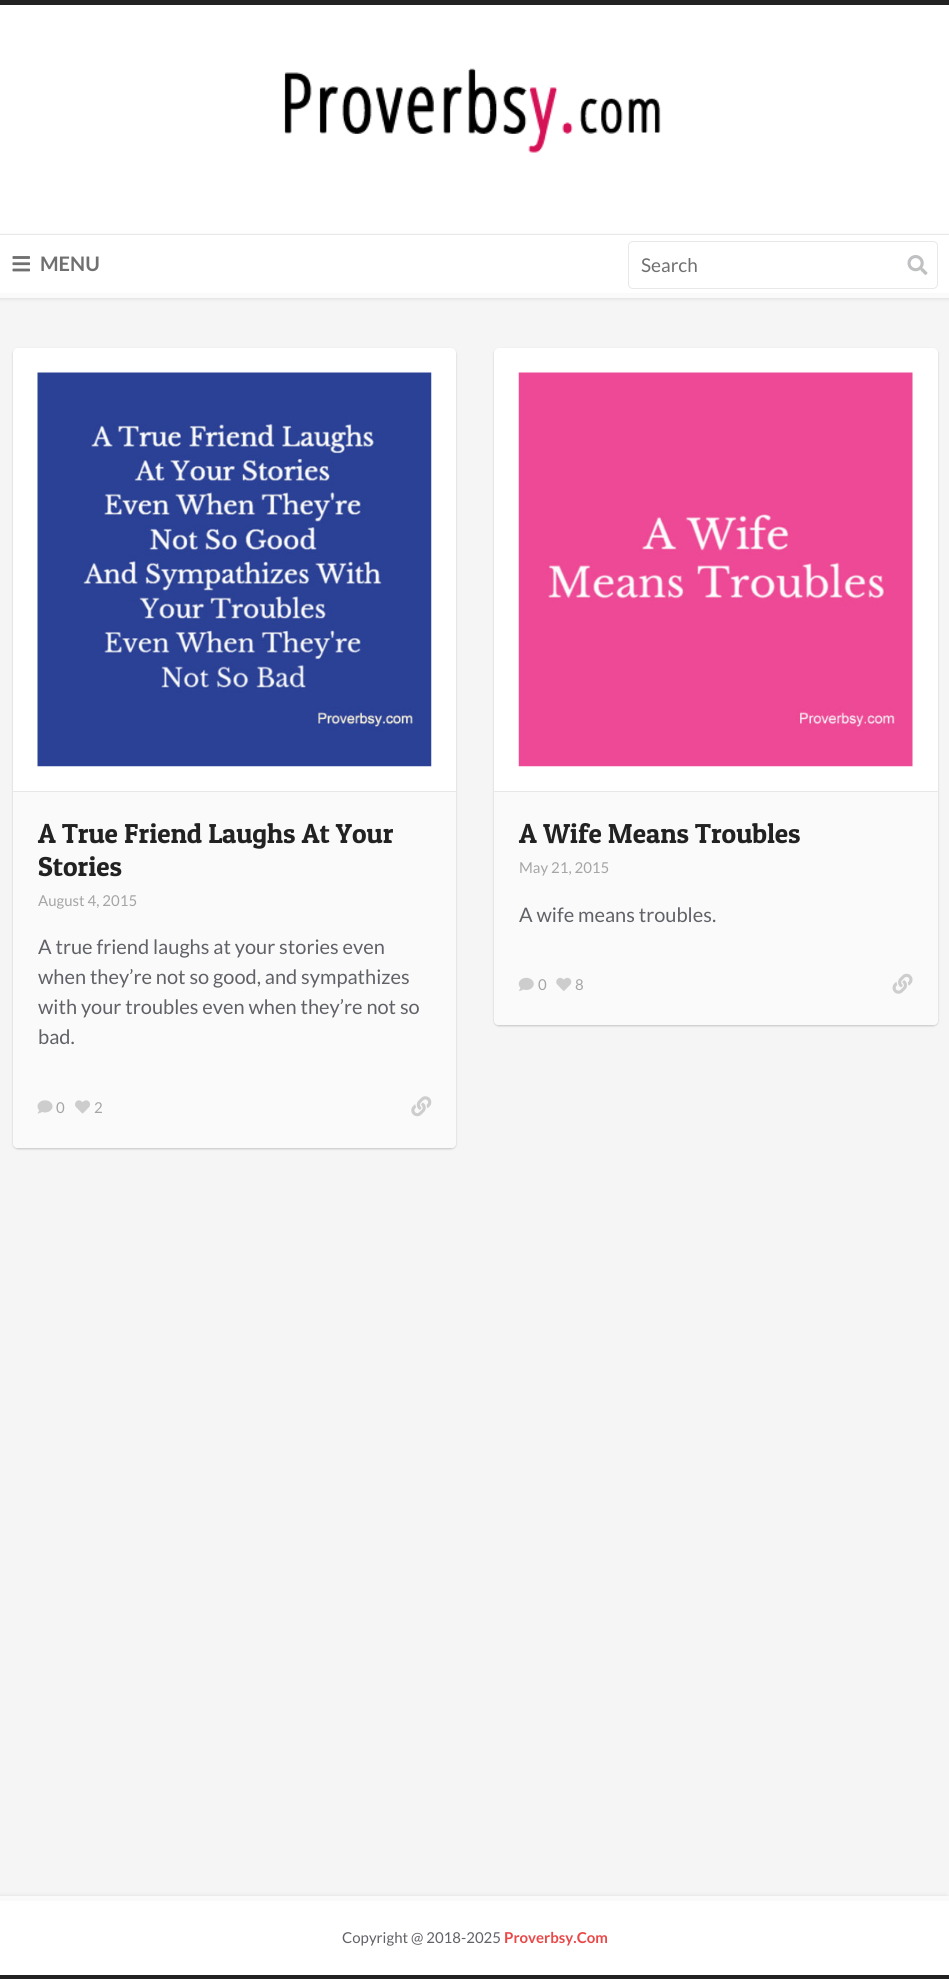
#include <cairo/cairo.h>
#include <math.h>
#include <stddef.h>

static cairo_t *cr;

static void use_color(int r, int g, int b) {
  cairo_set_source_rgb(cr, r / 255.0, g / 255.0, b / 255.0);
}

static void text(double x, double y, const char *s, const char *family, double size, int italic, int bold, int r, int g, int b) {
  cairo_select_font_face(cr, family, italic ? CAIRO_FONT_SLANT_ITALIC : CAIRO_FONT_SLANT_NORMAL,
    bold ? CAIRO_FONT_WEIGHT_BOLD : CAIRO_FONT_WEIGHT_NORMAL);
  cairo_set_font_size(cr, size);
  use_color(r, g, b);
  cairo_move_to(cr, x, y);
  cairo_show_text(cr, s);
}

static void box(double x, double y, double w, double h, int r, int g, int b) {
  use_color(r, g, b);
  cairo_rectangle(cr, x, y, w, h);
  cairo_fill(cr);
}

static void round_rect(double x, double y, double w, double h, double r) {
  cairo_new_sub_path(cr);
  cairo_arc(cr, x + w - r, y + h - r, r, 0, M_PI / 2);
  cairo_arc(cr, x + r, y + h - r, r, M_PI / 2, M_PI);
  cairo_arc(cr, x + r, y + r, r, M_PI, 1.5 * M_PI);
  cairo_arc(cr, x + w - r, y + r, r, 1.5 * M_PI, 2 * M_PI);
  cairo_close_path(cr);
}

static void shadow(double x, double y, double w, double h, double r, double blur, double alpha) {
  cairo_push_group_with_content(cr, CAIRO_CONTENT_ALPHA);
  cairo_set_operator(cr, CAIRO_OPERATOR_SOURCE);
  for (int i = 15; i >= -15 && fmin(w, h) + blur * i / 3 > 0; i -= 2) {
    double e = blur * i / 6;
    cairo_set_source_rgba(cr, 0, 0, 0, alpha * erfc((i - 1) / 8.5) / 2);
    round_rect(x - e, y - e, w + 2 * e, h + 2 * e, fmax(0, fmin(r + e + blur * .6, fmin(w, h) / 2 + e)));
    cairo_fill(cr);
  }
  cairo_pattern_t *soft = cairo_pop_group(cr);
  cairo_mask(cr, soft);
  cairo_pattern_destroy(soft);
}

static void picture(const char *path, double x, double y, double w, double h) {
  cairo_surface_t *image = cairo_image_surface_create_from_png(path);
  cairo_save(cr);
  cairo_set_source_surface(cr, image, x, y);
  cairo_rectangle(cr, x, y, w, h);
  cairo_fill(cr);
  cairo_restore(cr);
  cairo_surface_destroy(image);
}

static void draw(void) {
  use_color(245, 245, 245);
  cairo_paint(cr);
  box(0, 5, 949, 229, 255, 255, 255);
  box(0, 0, 949, 5, 34, 34, 34);
  picture("img_01.png", 284, 68, 377, 85);
  use_color(0, 0, 0);
  shadow(0, 235, 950, 64, 0, 2, 0.1);
  box(0, 235, 949, 58, 255, 255, 255);
  box(0, 234, 949, 1, 232, 232, 232);
  box(0, 293, 949, 5, 250, 250, 250);
  picture("img_02.png", 12, 256, 18, 16);
  round_rect(628.5, 241.5, 309, 47, 4.5);
  use_color(232, 232, 232);
  cairo_set_line_width(cr, 1);
  cairo_stroke(cr);
  picture("img_03.png", 907, 255, 21, 20);
  use_color(0, 0, 0);
  shadow(13, 349, 443, 800, 5, 1, 0.2);
  use_color(255, 255, 255);
  round_rect(13, 348, 443, 800, 5);
  cairo_fill(cr);
  picture("img_04.png", 37, 372, 395, 395);
  use_color(250, 250, 250);
  cairo_new_path(cr);
  cairo_move_to(cr, 13, 791);
  cairo_line_to(cr, 456, 791);
  cairo_line_to(cr, 456, 1143);
  cairo_curve_to(cr, 456, 1146, 454, 1148, 451, 1148);
  cairo_line_to(cr, 18, 1148);
  cairo_curve_to(cr, 15, 1148, 13, 1146, 13, 1143);
  cairo_close_path(cr);
  cairo_fill(cr);
  box(13, 791, 443, 1, 232, 232, 232);
  picture("img_05.png", 37, 1100, 16, 14);
  picture("img_06.png", 75, 1100, 15, 14);
  picture("img_07.png", 411, 1096, 21, 21);
  use_color(0, 0, 0);
  shadow(494, 349, 444, 677, 5, 1, 0.2);
  use_color(255, 255, 255);
  round_rect(494, 348, 444, 677, 5);
  cairo_fill(cr);
  picture("img_08.png", 518, 372, 395, 395);
  use_color(250, 250, 250);
  cairo_new_path(cr);
  cairo_move_to(cr, 494, 791);
  cairo_line_to(cr, 938, 791);
  cairo_line_to(cr, 938, 1020);
  cairo_curve_to(cr, 938, 1023, 936, 1025, 933, 1025);
  cairo_line_to(cr, 499, 1025);
  cairo_curve_to(cr, 496, 1025, 494, 1023, 494, 1020);
  cairo_close_path(cr);
  cairo_fill(cr);
  box(494, 791, 444, 1, 232, 232, 232);
  picture("img_09.png", 518, 977, 16, 14);
  picture("img_10.png", 556, 977, 16, 14);
  picture("img_11.png", 892, 973, 21, 21);
  use_color(0, 0, 0);
  shadow(-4, 1898, 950, 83, 0, 3, 0.2);
  box(0, 1901, 949, 74, 255, 255, 255);
  box(0, 1896, 949, 5, 250, 250, 250);
  box(0, 1975, 949, 4, 34, 34, 34);
  text(40, 271, "MENU", "Lato", 20, 0, 1, 112, 112, 112);
  text(641, 272, "Search", "Lato", 19, 0, 0, 112, 112, 112);
  text(38, 843, "A True Friend Laughs At Your", "Patua One", 27.5, 0, 0, 34, 34, 34);
  text(38, 876, "Stories", "Patua One", 27.5, 0, 0, 34, 34, 34);
  text(38, 906, "August 4, 2015", "Lato", 15, 0, 0, 165, 165, 165);
  text(38, 954, "A true friend laughs at your stories even", "Lato", 20, 0, 0, 96, 98, 103);
  text(38, 984, "when they’re not so good, and sympathizes", "Lato", 20, 0, 0, 96, 98, 103);
  text(38, 1014, "with your troubles even when they’re not so", "Lato", 20, 0, 0, 96, 98, 103);
  text(38, 1044, "bad.", "Lato", 20, 0, 0, 96, 98, 103);
  text(56, 1113, "0", "Lato", 15, 0, 0, 165, 165, 165);
  text(94, 1113, "2", "Lato", 15, 0, 0, 165, 165, 165);
  text(519, 843, "A Wife Means Troubles", "Patua One", 27.5, 0, 0, 34, 34, 34);
  text(519, 873, "May 21, 2015", "Lato", 15, 0, 0, 165, 165, 165);
  text(519, 922, "A wife means troubles.", "Lato", 20, 0, 0, 96, 98, 103);
  text(538, 990, "0", "Lato", 15, 0, 0, 165, 165, 165);
  text(575, 990, "8", "Lato", 15, 0, 0, 165, 165, 165);
  text(342, 1943, "Copyright @ 2018-2025", "Lato", 15, 0, 0, 96, 98, 103);
  text(504, 1943, "Proverbsy.Com", "Lato", 15, 0, 1, 234, 72, 72);
}

int main(void) {
  cairo_surface_t *surface = cairo_image_surface_create(CAIRO_FORMAT_RGB24, 949, 1979);
  cr = cairo_create(surface);
  cairo_font_options_t *options = cairo_font_options_create();
  cairo_font_options_set_hint_metrics(options, CAIRO_HINT_METRICS_OFF);
  cairo_font_options_set_hint_style(options, CAIRO_HINT_STYLE_NONE);
  cairo_set_font_options(cr, options);
  cairo_set_miter_limit(cr, 4);
  draw();
  cairo_surface_write_to_png(surface, "out.png");
  cairo_font_options_destroy(options);
  cairo_destroy(cr);
  cairo_surface_destroy(surface);
  return 0;
}
